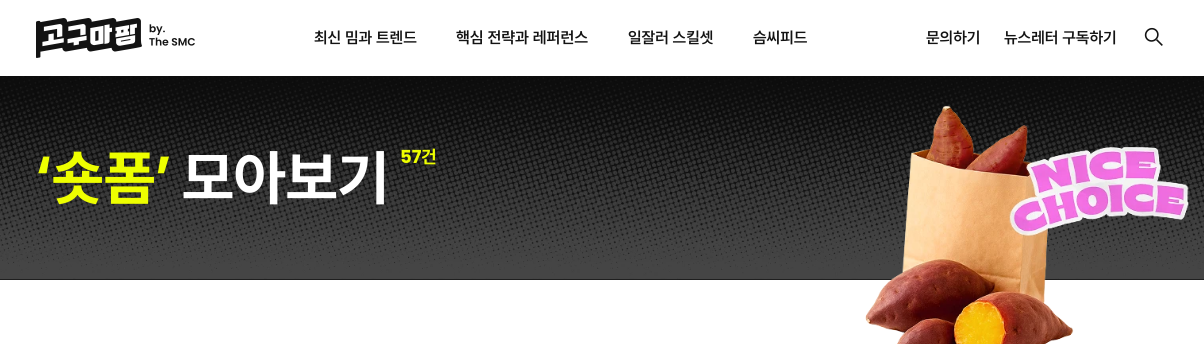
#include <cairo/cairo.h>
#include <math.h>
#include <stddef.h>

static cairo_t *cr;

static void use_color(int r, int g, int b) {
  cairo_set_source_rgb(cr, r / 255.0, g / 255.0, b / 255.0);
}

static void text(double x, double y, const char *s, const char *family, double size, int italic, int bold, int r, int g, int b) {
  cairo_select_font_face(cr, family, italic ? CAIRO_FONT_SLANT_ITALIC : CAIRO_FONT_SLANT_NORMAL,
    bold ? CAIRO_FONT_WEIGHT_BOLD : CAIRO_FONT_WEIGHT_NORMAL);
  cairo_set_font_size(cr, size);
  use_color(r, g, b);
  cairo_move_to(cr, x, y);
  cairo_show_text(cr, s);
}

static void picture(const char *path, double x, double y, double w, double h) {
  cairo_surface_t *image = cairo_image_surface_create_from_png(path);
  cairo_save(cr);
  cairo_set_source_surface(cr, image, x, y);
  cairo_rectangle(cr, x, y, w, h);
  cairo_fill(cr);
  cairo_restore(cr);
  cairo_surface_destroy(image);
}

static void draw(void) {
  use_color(255, 255, 255);
  cairo_paint(cr);
  picture("img_01.png", 36, 18, 159, 40);
  picture("img_02.png", 1144, 27, 19, 19);
  picture("img_03.png", 0, 76, 1204, 204);
  picture("img_04.png", 865, 105, 324, 239);
  text(314, 43, "최신 밈과 트렌드", "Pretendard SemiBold", 15.75, 0, 0, 19, 19, 19);
  text(456, 43, "핵심 전략과 레퍼런스", "Pretendard SemiBold", 16, 0, 0, 19, 19, 19);
  text(628, 43, "일잘러 스킬셋", "Pretendard SemiBold", 15.75, 0, 0, 19, 19, 19);
  text(753, 43, "슴씨피드", "Pretendard SemiBold", 15.75, 0, 0, 19, 19, 19);
  text(926, 43, "문의하기", "Pretendard SemiBold", 15.75, 0, 0, 19, 19, 19);
  text(1004, 43, "뉴스레터 구독하기", "Pretendard SemiBold", 15.75, 0, 0, 19, 19, 19);
  text(36, 199, "‘숏폼’", "Pretendard", 60, 0, 1, 238, 255, 0);
  text(182, 199, "모아보기", "Pretendard", 60, 0, 1, 255, 255, 255);
  text(400, 163, "57", "Poppins", 18, 0, 1, 238, 255, 0);
  text(421, 163, "건", "Pretendard", 18, 0, 1, 238, 255, 0);
}

int main(void) {
  cairo_surface_t *surface = cairo_image_surface_create(CAIRO_FORMAT_RGB24, 1204, 344);
  cr = cairo_create(surface);
  cairo_font_options_t *options = cairo_font_options_create();
  cairo_font_options_set_hint_metrics(options, CAIRO_HINT_METRICS_OFF);
  cairo_font_options_set_hint_style(options, CAIRO_HINT_STYLE_NONE);
  cairo_set_font_options(cr, options);
  cairo_set_miter_limit(cr, 4);
  draw();
  cairo_surface_write_to_png(surface, "out.png");
  cairo_font_options_destroy(options);
  cairo_destroy(cr);
  cairo_surface_destroy(surface);
  return 0;
}
